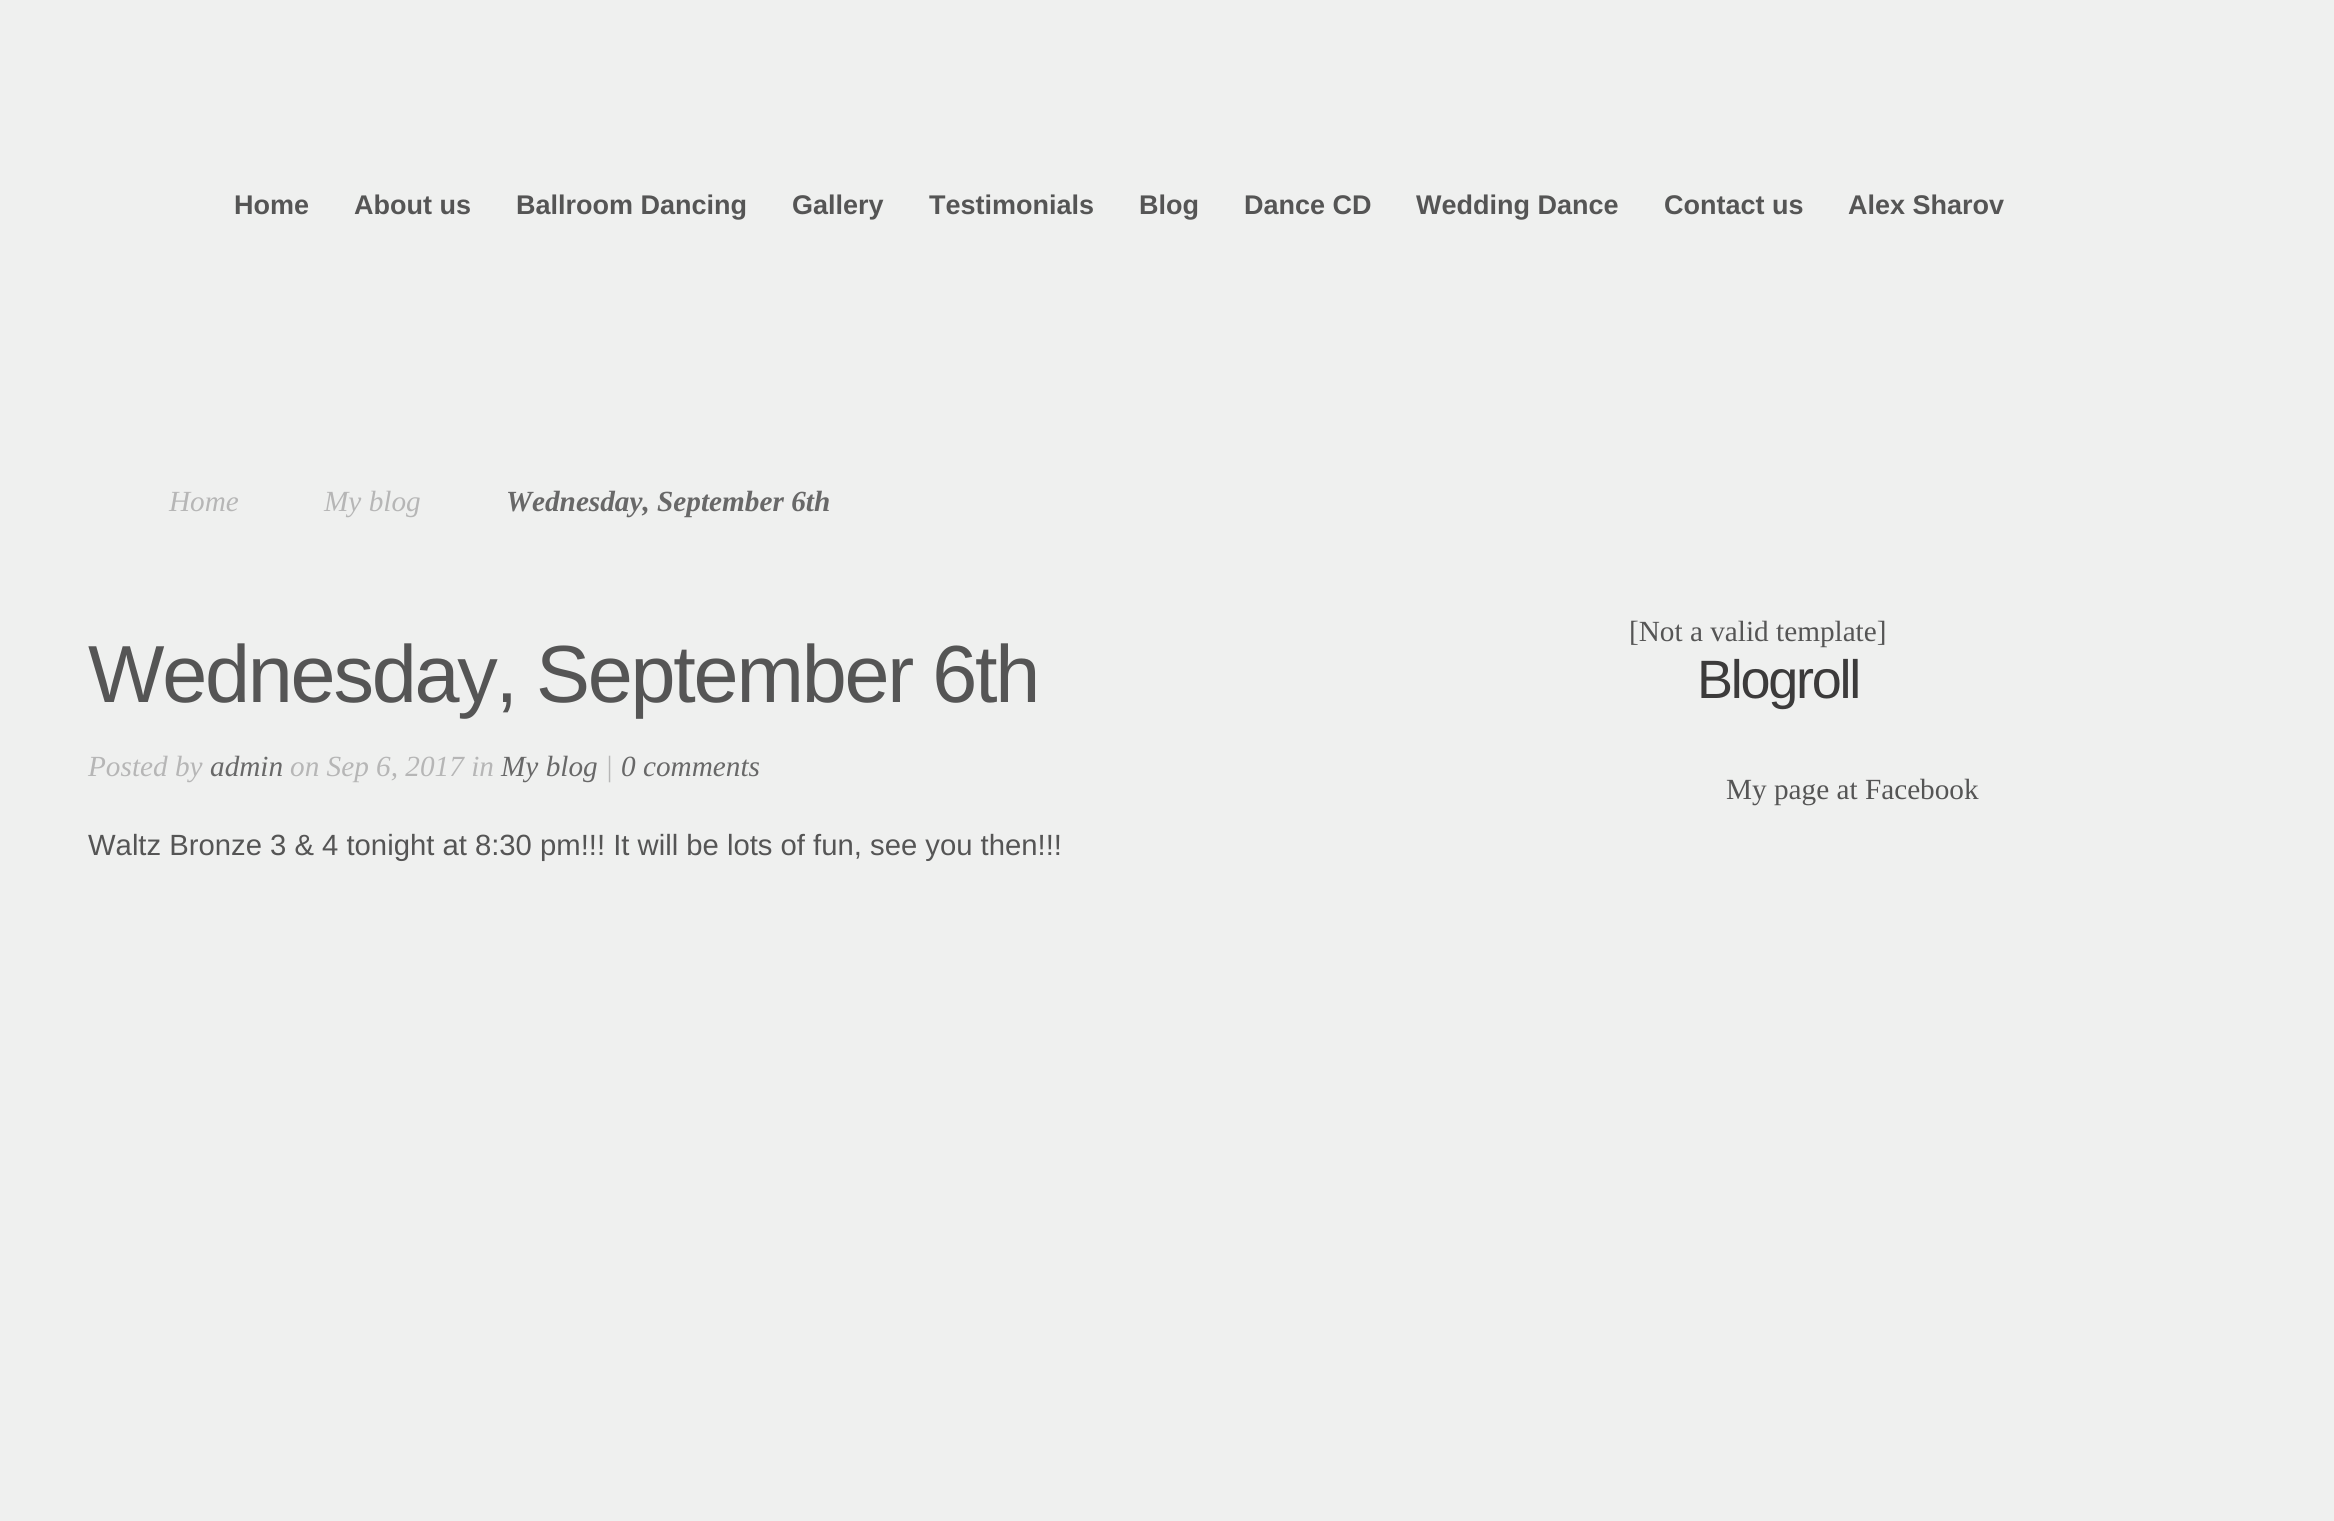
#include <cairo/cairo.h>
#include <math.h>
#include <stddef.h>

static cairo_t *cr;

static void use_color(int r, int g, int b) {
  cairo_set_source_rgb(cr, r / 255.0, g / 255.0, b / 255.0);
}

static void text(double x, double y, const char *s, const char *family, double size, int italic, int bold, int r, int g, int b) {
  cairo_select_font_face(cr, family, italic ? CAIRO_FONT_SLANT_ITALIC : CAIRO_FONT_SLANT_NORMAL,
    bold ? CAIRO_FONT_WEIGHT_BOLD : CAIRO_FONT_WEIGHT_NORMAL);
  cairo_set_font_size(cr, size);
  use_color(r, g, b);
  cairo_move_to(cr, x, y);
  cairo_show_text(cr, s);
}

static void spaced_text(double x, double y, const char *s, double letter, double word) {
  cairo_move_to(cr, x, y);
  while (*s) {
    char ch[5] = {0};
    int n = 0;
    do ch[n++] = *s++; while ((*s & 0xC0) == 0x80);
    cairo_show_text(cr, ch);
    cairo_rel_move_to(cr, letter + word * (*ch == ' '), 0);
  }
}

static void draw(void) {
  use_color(239, 240, 239);
  cairo_paint(cr);
  text(234, 214, "Home", "Liberation Sans", 27, 0, 1, 85, 85, 85);
  text(354, 214, "About us", "Liberation Sans", 27, 0, 1, 85, 85, 85);
  text(516, 214, "Ballroom Dancing", "Liberation Sans", 27, 0, 1, 85, 85, 85);
  text(792, 214, "Gallery", "Liberation Sans", 27, 0, 1, 85, 85, 85);
  text(929, 214, "Testimonials", "Liberation Sans", 27, 0, 1, 85, 85, 85);
  text(1139, 214, "Blog", "Liberation Sans", 27, 0, 1, 85, 85, 85);
  text(1244, 214, "Dance CD", "Liberation Sans", 27, 0, 1, 85, 85, 85);
  text(1416, 214, "Wedding Dance", "Liberation Sans", 27, 0, 1, 85, 85, 85);
  text(1664, 214, "Contact us", "Liberation Sans", 27, 0, 1, 85, 85, 85);
  text(1848, 214, "Alex Sharov", "Liberation Sans", 27, 0, 1, 85, 85, 85);
  text(169, 511, "Home", "Liberation Serif", 29.25, 1, 0, 182, 182, 182);
  text(324, 511, "My blog", "Liberation Serif", 29.25, 1, 0, 182, 182, 182);
  text(506, 511, "Wednesday, September 6th", "Liberation Serif", 29.25, 1, 1, 104, 104, 104);
  cairo_select_font_face(cr, "Liberation Sans", CAIRO_FONT_SLANT_NORMAL, CAIRO_FONT_WEIGHT_NORMAL);
  cairo_set_font_size(cr, 81);
  use_color(85, 85, 85);
  spaced_text(88, 702, "Wednesday, September 6th", -2.25, 0);
  text(88, 776, "Posted by", "Liberation Serif", 29.25, 1, 0, 182, 182, 182);
  text(210, 776, "admin", "Liberation Serif", 29.25, 1, 0, 104, 104, 104);
  text(290, 776, "on Sep 6, 2017 in", "Liberation Serif", 29.25, 1, 0, 182, 182, 182);
  text(501, 776, "My blog", "Liberation Serif", 29.25, 1, 0, 104, 104, 104);
  text(605, 776, "|", "Liberation Serif", 29.25, 1, 0, 182, 182, 182);
  text(621, 776, "0 comments", "Liberation Serif", 29.25, 1, 0, 104, 104, 104);
  text(88, 855, "Waltz Bronze 3 & 4 tonight at 8:30 pm!!! It will be lots of fun, see you then!!!", "Liberation Sans", 29.25, 0, 0, 85, 85, 85);
  text(1629, 641, "[Not a valid template]", "Liberation Serif", 29.25, 0, 0, 85, 85, 85);
  cairo_select_font_face(cr, "Liberation Sans", CAIRO_FONT_SLANT_NORMAL, CAIRO_FONT_WEIGHT_NORMAL);
  cairo_set_font_size(cr, 54);
  use_color(60, 59, 59);
  spaced_text(1697, 698, "Blogroll", -2.25, 0);
  text(1726, 799, "My page at Facebook", "Liberation Serif", 29.25, 0, 0, 85, 85, 85);
}

int main(void) {
  cairo_surface_t *surface = cairo_image_surface_create(CAIRO_FORMAT_RGB24, 2334, 1521);
  cr = cairo_create(surface);
  cairo_font_options_t *options = cairo_font_options_create();
  cairo_font_options_set_hint_metrics(options, CAIRO_HINT_METRICS_OFF);
  cairo_font_options_set_hint_style(options, CAIRO_HINT_STYLE_NONE);
  cairo_set_font_options(cr, options);
  cairo_set_miter_limit(cr, 4);
  draw();
  cairo_surface_write_to_png(surface, "out.png");
  cairo_font_options_destroy(options);
  cairo_destroy(cr);
  cairo_surface_destroy(surface);
  return 0;
}
